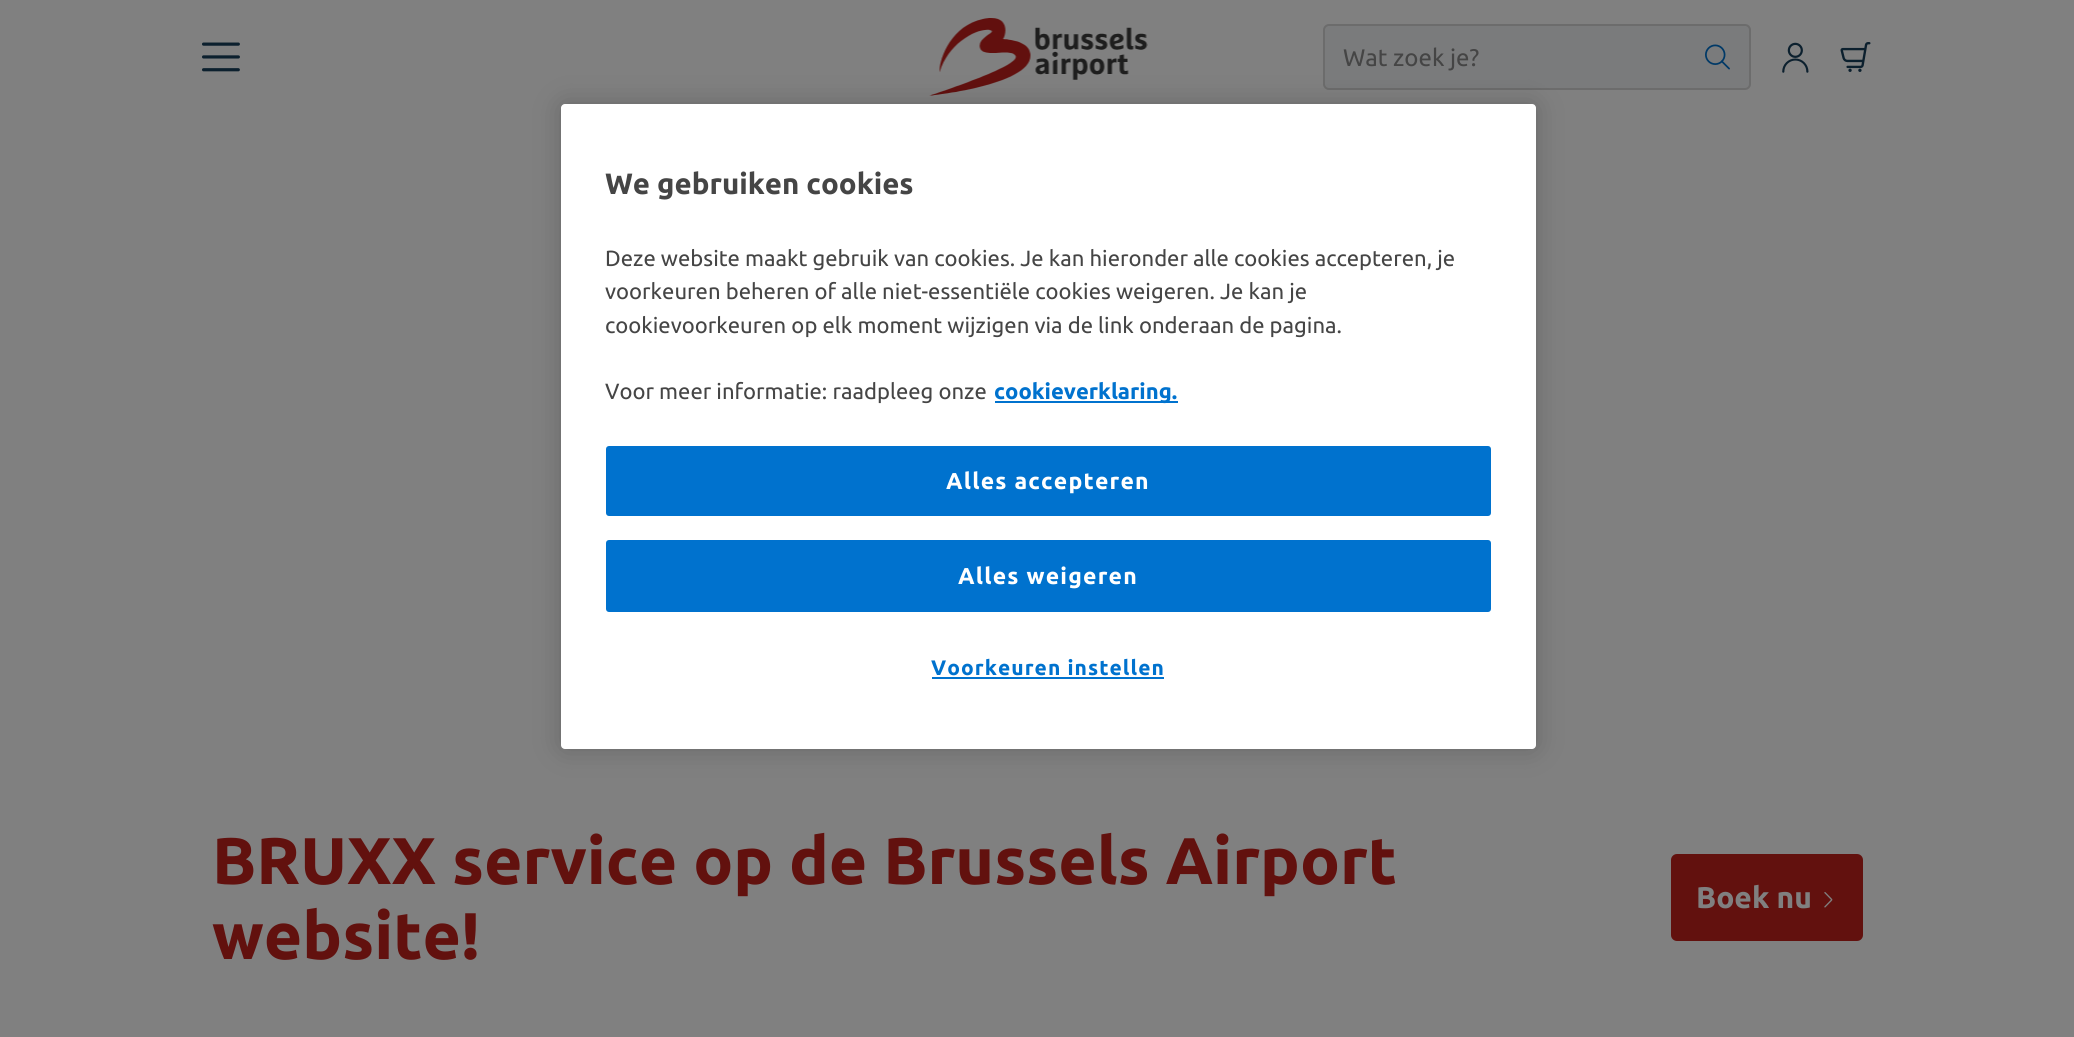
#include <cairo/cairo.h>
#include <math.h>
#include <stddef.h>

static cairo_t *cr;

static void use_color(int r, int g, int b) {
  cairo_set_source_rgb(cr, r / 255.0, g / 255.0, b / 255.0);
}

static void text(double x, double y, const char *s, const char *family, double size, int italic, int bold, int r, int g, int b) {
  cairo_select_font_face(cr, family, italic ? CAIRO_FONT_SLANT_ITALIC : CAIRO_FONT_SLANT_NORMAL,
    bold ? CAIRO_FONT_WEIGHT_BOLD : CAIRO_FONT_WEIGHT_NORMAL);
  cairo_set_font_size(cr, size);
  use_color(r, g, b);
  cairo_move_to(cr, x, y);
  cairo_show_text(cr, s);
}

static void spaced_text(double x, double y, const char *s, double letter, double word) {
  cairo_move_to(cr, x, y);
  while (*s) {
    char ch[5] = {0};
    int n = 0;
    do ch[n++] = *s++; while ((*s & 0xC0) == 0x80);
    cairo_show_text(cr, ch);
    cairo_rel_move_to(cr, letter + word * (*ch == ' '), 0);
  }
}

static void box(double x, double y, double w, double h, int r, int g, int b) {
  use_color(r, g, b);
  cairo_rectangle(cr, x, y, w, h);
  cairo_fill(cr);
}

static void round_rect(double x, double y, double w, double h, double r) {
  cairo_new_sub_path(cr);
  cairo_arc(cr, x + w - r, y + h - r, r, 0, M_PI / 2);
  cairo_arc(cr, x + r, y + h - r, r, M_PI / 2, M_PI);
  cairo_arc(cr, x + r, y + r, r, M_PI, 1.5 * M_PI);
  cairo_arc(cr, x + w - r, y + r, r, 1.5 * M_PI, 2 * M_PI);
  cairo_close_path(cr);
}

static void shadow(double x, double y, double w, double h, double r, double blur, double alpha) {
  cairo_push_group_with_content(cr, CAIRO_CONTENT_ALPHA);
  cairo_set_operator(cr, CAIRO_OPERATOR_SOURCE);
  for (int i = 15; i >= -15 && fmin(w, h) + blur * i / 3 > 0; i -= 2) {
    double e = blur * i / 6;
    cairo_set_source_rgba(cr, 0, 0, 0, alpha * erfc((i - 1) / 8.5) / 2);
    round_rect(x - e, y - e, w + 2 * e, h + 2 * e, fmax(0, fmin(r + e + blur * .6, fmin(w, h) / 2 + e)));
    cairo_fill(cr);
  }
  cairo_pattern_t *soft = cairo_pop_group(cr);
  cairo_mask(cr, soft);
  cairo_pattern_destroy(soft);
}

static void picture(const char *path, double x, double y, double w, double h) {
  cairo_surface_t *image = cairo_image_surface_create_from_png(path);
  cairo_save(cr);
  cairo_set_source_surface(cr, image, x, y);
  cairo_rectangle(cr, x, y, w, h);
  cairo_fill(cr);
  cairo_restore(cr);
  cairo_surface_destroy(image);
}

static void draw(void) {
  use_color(128, 128, 128);
  cairo_paint(cr);
  picture("img_01.png", 202, 42, 38, 30);
  picture("img_02.png", 929, 18, 219, 78);
  use_color(122, 123, 124);
  round_rect(1324, 25, 426, 64, 5);
  cairo_fill_preserve(cr);
  use_color(108, 108, 108);
  cairo_stroke(cr);
  picture("img_03.png", 1705, 44, 25, 26);
  picture("img_04.png", 1782, 42, 27, 31);
  picture("img_05.png", 1840, 42, 31, 30);
  use_color(0, 0, 0);
  shadow(561, 104, 975, 645, 4, 13.5, 0.2);
  use_color(255, 255, 255);
  round_rect(561, 104, 975, 645, 4);
  cairo_fill(cr);
  box(995, 401, 183, 2, 0, 114, 206);
  round_rect(607, 447, 883, 68, 2);
  cairo_fill_preserve(cr);
  cairo_stroke(cr);
  round_rect(607, 541, 883, 70, 2);
  cairo_fill_preserve(cr);
  cairo_stroke(cr);
  box(932, 677, 232, 2, 0, 114, 206);
  use_color(98, 17, 14);
  round_rect(1672, 855, 190, 85, 5);
  cairo_fill_preserve(cr);
  cairo_stroke(cr);
  picture("img_06.png", 1824, 892, 9, 16);
  text(1343, 66, "Wat zoek je?", "Ubuntu", 24, 0, 0, 69, 69, 69);
  text(605, 194, "We gebruiken cookies", "Ubuntu", 29.4, 0, 1, 69, 69, 69);
  text(605, 266, "Deze website maakt gebruik van cookies. Je kan hieronder alle cookies accepteren, je", "Ubuntu", 22.05, 0, 0, 69, 69, 69);
  text(605, 299, "voorkeuren beheren of alle niet-essentiële cookies weigeren. Je kan je", "Ubuntu", 22.05, 0, 0, 69, 69, 69);
  text(605, 333, "cookievoorkeuren op elk moment wijzigen via de link onderaan de pagina.", "Ubuntu", 22.05, 0, 0, 69, 69, 69);
  text(605, 399, "Voor meer informatie: raadpleeg onze", "Ubuntu", 22.05, 0, 0, 69, 69, 69);
  text(994, 399, "cookieverklaring.", "Ubuntu", 22.05, 0, 1, 0, 114, 206);
  cairo_set_font_size(cr, 23);
  use_color(255, 255, 255);
  spaced_text(946, 489, "Alles accepteren", 1.2, 0);
  spaced_text(958, 584, "Alles weigeren", 1.2, 0);
  cairo_set_font_size(cr, 21);
  use_color(0, 114, 206);
  spaced_text(931, 675, "Voorkeuren instellen", 1.05, 0);
  text(212, 884, "BRUXX service op de Brussels Airport", "Ubuntu", 66, 0, 1, 98, 17, 14);
  text(212, 959, "website!", "Ubuntu", 66, 0, 1, 98, 17, 14);
  text(1696, 908, "Boek nu", "Ubuntu", 30, 0, 1, 128, 128, 128);
}

int main(void) {
  cairo_surface_t *surface = cairo_image_surface_create(CAIRO_FORMAT_RGB24, 2074, 1037);
  cr = cairo_create(surface);
  cairo_font_options_t *options = cairo_font_options_create();
  cairo_font_options_set_hint_metrics(options, CAIRO_HINT_METRICS_OFF);
  cairo_font_options_set_hint_style(options, CAIRO_HINT_STYLE_NONE);
  cairo_set_font_options(cr, options);
  cairo_set_miter_limit(cr, 4);
  draw();
  cairo_surface_write_to_png(surface, "out.png");
  cairo_font_options_destroy(options);
  cairo_destroy(cr);
  cairo_surface_destroy(surface);
  return 0;
}
